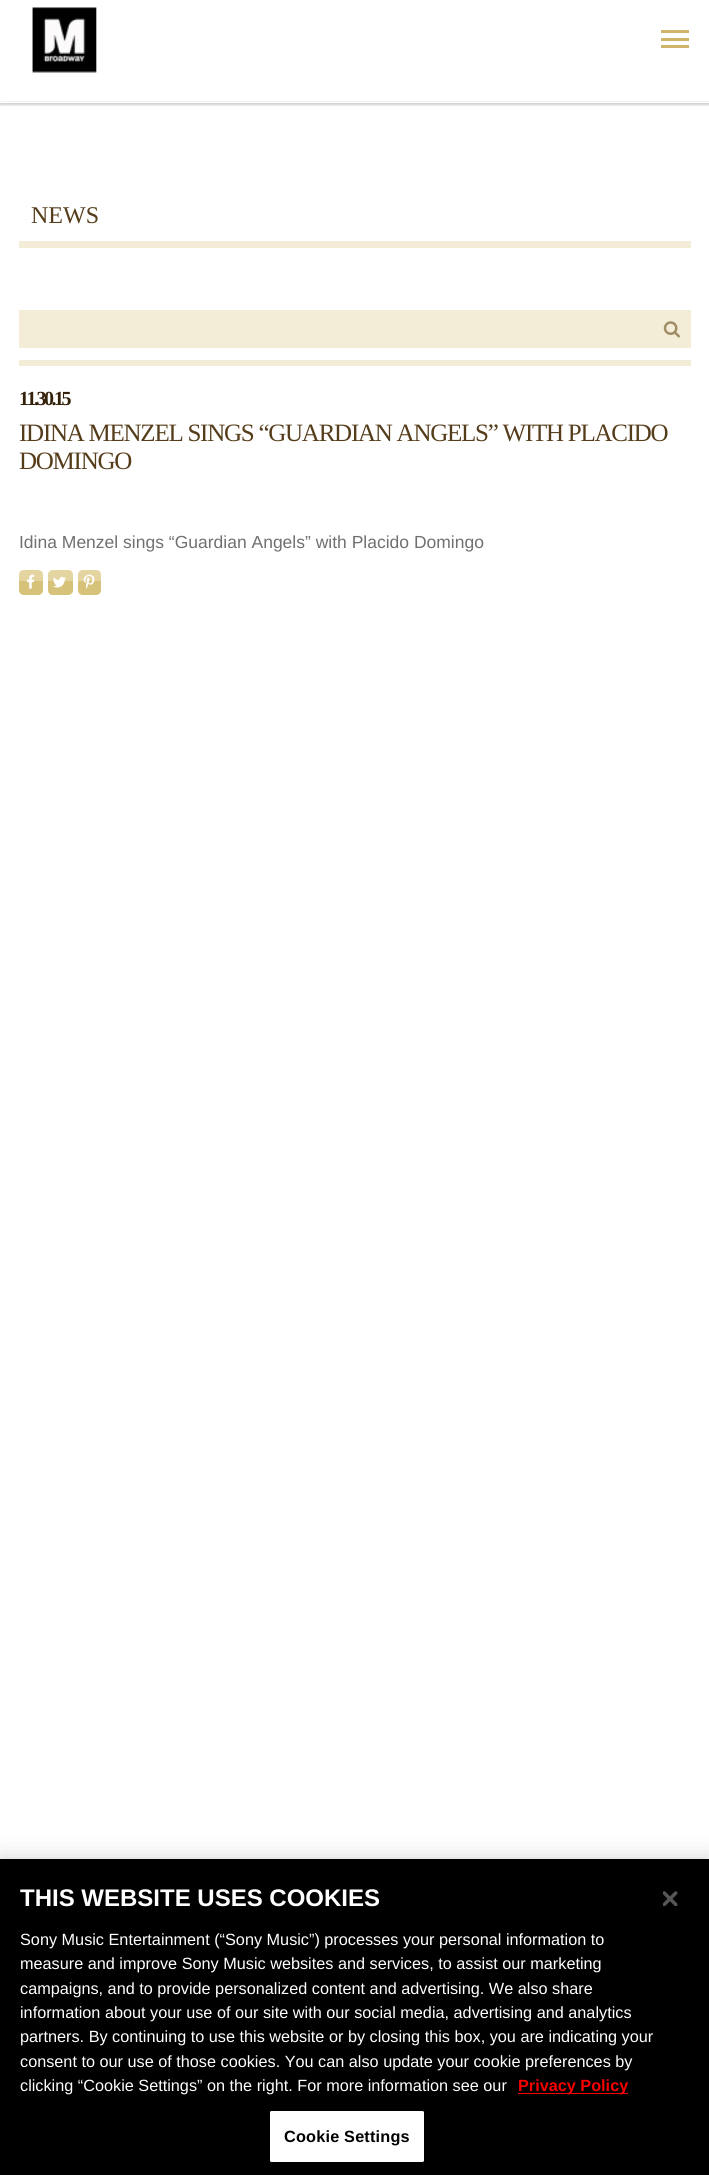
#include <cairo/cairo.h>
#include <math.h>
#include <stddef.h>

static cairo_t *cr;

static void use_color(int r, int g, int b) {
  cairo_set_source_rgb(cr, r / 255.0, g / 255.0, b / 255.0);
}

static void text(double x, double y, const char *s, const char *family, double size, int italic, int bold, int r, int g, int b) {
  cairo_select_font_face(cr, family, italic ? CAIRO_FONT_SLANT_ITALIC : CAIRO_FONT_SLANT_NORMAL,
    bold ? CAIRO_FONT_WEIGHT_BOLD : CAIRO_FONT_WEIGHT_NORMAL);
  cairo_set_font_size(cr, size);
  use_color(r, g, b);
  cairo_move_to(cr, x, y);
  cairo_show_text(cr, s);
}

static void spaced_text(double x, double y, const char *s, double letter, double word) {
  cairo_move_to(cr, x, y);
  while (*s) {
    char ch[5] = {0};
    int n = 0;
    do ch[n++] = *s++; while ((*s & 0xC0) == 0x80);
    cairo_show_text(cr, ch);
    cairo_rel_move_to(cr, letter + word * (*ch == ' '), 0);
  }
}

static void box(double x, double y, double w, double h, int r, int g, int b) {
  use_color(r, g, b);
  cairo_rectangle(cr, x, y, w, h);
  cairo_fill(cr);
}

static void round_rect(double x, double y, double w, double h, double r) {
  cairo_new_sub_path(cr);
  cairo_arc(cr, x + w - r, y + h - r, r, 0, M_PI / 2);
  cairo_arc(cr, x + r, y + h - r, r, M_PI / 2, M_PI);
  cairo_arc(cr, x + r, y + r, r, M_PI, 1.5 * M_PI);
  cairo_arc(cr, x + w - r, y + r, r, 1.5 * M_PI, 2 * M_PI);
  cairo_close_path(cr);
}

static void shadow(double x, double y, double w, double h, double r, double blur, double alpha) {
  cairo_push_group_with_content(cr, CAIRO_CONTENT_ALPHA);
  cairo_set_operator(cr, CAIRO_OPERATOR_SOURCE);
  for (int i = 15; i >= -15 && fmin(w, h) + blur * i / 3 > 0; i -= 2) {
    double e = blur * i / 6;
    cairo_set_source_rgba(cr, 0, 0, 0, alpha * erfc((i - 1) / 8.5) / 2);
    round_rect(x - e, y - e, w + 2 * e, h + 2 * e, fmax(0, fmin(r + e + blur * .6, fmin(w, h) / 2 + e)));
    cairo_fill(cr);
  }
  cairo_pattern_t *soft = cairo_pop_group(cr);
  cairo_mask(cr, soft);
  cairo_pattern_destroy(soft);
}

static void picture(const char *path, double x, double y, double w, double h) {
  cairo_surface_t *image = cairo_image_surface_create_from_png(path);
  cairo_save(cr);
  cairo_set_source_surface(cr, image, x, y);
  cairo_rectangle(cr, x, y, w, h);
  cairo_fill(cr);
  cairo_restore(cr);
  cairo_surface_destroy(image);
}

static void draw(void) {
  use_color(255, 255, 255);
  cairo_paint(cr);
  cairo_save(cr);
  cairo_set_fill_rule(cr, CAIRO_FILL_RULE_EVEN_ODD);
  cairo_new_path(cr);
  cairo_move_to(cr, 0, 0);
  cairo_line_to(cr, 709, 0);
  cairo_line_to(cr, 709, 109);
  cairo_line_to(cr, 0, 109);
  cairo_close_path(cr);
  cairo_move_to(cr, 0, 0);
  cairo_line_to(cr, 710, 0);
  cairo_line_to(cr, 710, 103);
  cairo_line_to(cr, 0, 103);
  cairo_close_path(cr);
  cairo_clip(cr);
  use_color(55, 33, 11);
  shadow(0, 3, 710, 102, 0, 1, 0.22);
  cairo_restore(cr);
  box(0, 101, 709, 1, 242, 242, 242);
  picture("img_01.png", 32, 7, 65, 66);
  box(661, 30, 28, 3, 206, 181, 106);
  box(661, 38, 28, 3, 206, 181, 106);
  box(661, 45, 28, 3, 206, 181, 106);
  box(19, 241, 672, 7, 243, 237, 215);
  box(19, 360, 672, 6, 243, 237, 215);
  box(19, 310, 672, 38, 243, 237, 215);
  picture("img_02.png", 663, 321, 17, 17);
  use_color(227, 212, 160);
  cairo_new_path(cr);
  cairo_move_to(cr, 24, 570);
  cairo_line_to(cr, 38, 570);
  cairo_curve_to(cr, 41, 570, 43, 572, 43, 575);
  cairo_line_to(cr, 43, 581);
  cairo_line_to(cr, 19, 581);
  cairo_line_to(cr, 19, 575);
  cairo_curve_to(cr, 19, 572, 21, 570, 24, 570);
  cairo_close_path(cr);
  cairo_fill(cr);
  use_color(215, 194, 121);
  cairo_new_path(cr);
  cairo_move_to(cr, 19, 581);
  cairo_line_to(cr, 43, 581);
  cairo_line_to(cr, 43, 590);
  cairo_curve_to(cr, 43, 593, 41, 595, 38, 595);
  cairo_line_to(cr, 24, 595);
  cairo_curve_to(cr, 21, 595, 19, 593, 19, 590);
  cairo_close_path(cr);
  cairo_fill(cr);
  picture("img_03.png", 27, 574, 8, 15);
  use_color(227, 212, 160);
  cairo_new_path(cr);
  cairo_move_to(cr, 53, 570);
  cairo_line_to(cr, 68, 570);
  cairo_curve_to(cr, 71, 570, 73, 572, 73, 575);
  cairo_line_to(cr, 73, 581);
  cairo_line_to(cr, 48, 581);
  cairo_line_to(cr, 48, 575);
  cairo_curve_to(cr, 48, 572, 50, 570, 53, 570);
  cairo_close_path(cr);
  cairo_fill(cr);
  use_color(215, 194, 121);
  cairo_new_path(cr);
  cairo_move_to(cr, 48, 581);
  cairo_line_to(cr, 73, 581);
  cairo_line_to(cr, 73, 590);
  cairo_curve_to(cr, 73, 593, 71, 595, 68, 595);
  cairo_line_to(cr, 53, 595);
  cairo_curve_to(cr, 50, 595, 48, 593, 48, 590);
  cairo_close_path(cr);
  cairo_fill(cr);
  picture("img_04.png", 53, 576, 13, 12);
  use_color(227, 212, 160);
  cairo_new_path(cr);
  cairo_move_to(cr, 83, 570);
  cairo_line_to(cr, 96, 570);
  cairo_curve_to(cr, 99, 570, 101, 572, 101, 575);
  cairo_line_to(cr, 101, 581);
  cairo_line_to(cr, 78, 581);
  cairo_line_to(cr, 78, 575);
  cairo_curve_to(cr, 78, 572, 80, 570, 83, 570);
  cairo_close_path(cr);
  cairo_fill(cr);
  use_color(215, 194, 121);
  cairo_new_path(cr);
  cairo_move_to(cr, 78, 581);
  cairo_line_to(cr, 101, 581);
  cairo_line_to(cr, 101, 590);
  cairo_curve_to(cr, 101, 593, 99, 595, 96, 595);
  cairo_line_to(cr, 83, 595);
  cairo_curve_to(cr, 80, 595, 78, 593, 78, 590);
  cairo_close_path(cr);
  cairo_fill(cr);
  picture("img_05.png", 83, 574, 12, 15);
  use_color(0, 0, 0);
  shadow(0, 1859, 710, 316, 0, 11, 0.2);
  box(0, 1859, 709, 316, 0, 0, 0);
  box(518, 2093, 110, 1, 249, 0, 0);
  use_color(255, 255, 255);
  round_rect(269.5, 2110.5, 155, 52, 2);
  cairo_fill_preserve(cr);
  use_color(0, 0, 0);
  cairo_set_line_width(cr, 1);
  cairo_stroke(cr);
  picture("img_06.png", 663, 1891, 15, 15);
  text(31, 223, "NEWS", "Liberation Serif", 24, 0, 0, 85, 61, 27);
  cairo_select_font_face(cr, "Liberation Serif", CAIRO_FONT_SLANT_NORMAL, CAIRO_FONT_WEIGHT_BOLD);
  cairo_set_font_size(cr, 20);
  use_color(53, 33, 11);
  spaced_text(19, 405, "11.30.15", -2.5, 0);
  cairo_select_font_face(cr, "Liberation Serif", CAIRO_FONT_SLANT_NORMAL, CAIRO_FONT_WEIGHT_NORMAL);
  cairo_set_font_size(cr, 25);
  use_color(85, 61, 27);
  spaced_text(19, 441, "IDINA MENZEL SINGS “GUARDIAN ANGELS” WITH PLACIDO", -1.25, 0);
  spaced_text(19, 469, "DOMINGO", -1.25, 0);
  text(19, 548, "Idina Menzel sings “Guardian Angels” with Placido Domingo", "Liberation Sans", 17.5, 0, 0, 112, 112, 112);
  text(20, 1906, "THIS WEBSITE USES COOKIES", "Liberation Sans", 24, 0, 1, 255, 255, 255);
  text(20, 1945, "Sony Music Entertainment (“Sony Music”) processes your personal information to", "Liberation Sans", 16.25, 0, 0, 255, 255, 255);
  text(20, 1969, "measure and improve Sony Music websites and services, to assist our marketing", "Liberation Sans", 16.25, 0, 0, 255, 255, 255);
  text(20, 1994, "campaigns, and to provide personalized content and advertising. We also share", "Liberation Sans", 16.25, 0, 0, 255, 255, 255);
  text(20, 2018, "information about your use of our site with our social media, advertising and analytics", "Liberation Sans", 16.25, 0, 0, 255, 255, 255);
  text(20, 2042, "partners. By continuing to use this website or by closing this box, you are indicating your", "Liberation Sans", 16.25, 0, 0, 255, 255, 255);
  text(20, 2067, "consent to our use of those cookies. You can also update your cookie preferences by", "Liberation Sans", 16.25, 0, 0, 255, 255, 255);
  text(20, 2091, "clicking “Cookie Settings” on the right. For more information see our", "Liberation Sans", 16.25, 0, 0, 255, 255, 255);
  text(518, 2091, "Privacy Policy", "Liberation Sans", 16.25, 0, 1, 249, 0, 0);
  use_color(0, 0, 0);
  spaced_text(284, 2142, "Cookie Settings", 0.2, 0);
}

int main(void) {
  cairo_surface_t *surface = cairo_image_surface_create(CAIRO_FORMAT_RGB24, 709, 2175);
  cr = cairo_create(surface);
  cairo_font_options_t *options = cairo_font_options_create();
  cairo_font_options_set_hint_metrics(options, CAIRO_HINT_METRICS_OFF);
  cairo_font_options_set_hint_style(options, CAIRO_HINT_STYLE_NONE);
  cairo_set_font_options(cr, options);
  cairo_set_miter_limit(cr, 4);
  draw();
  cairo_surface_write_to_png(surface, "out.png");
  cairo_font_options_destroy(options);
  cairo_destroy(cr);
  cairo_surface_destroy(surface);
  return 0;
}
